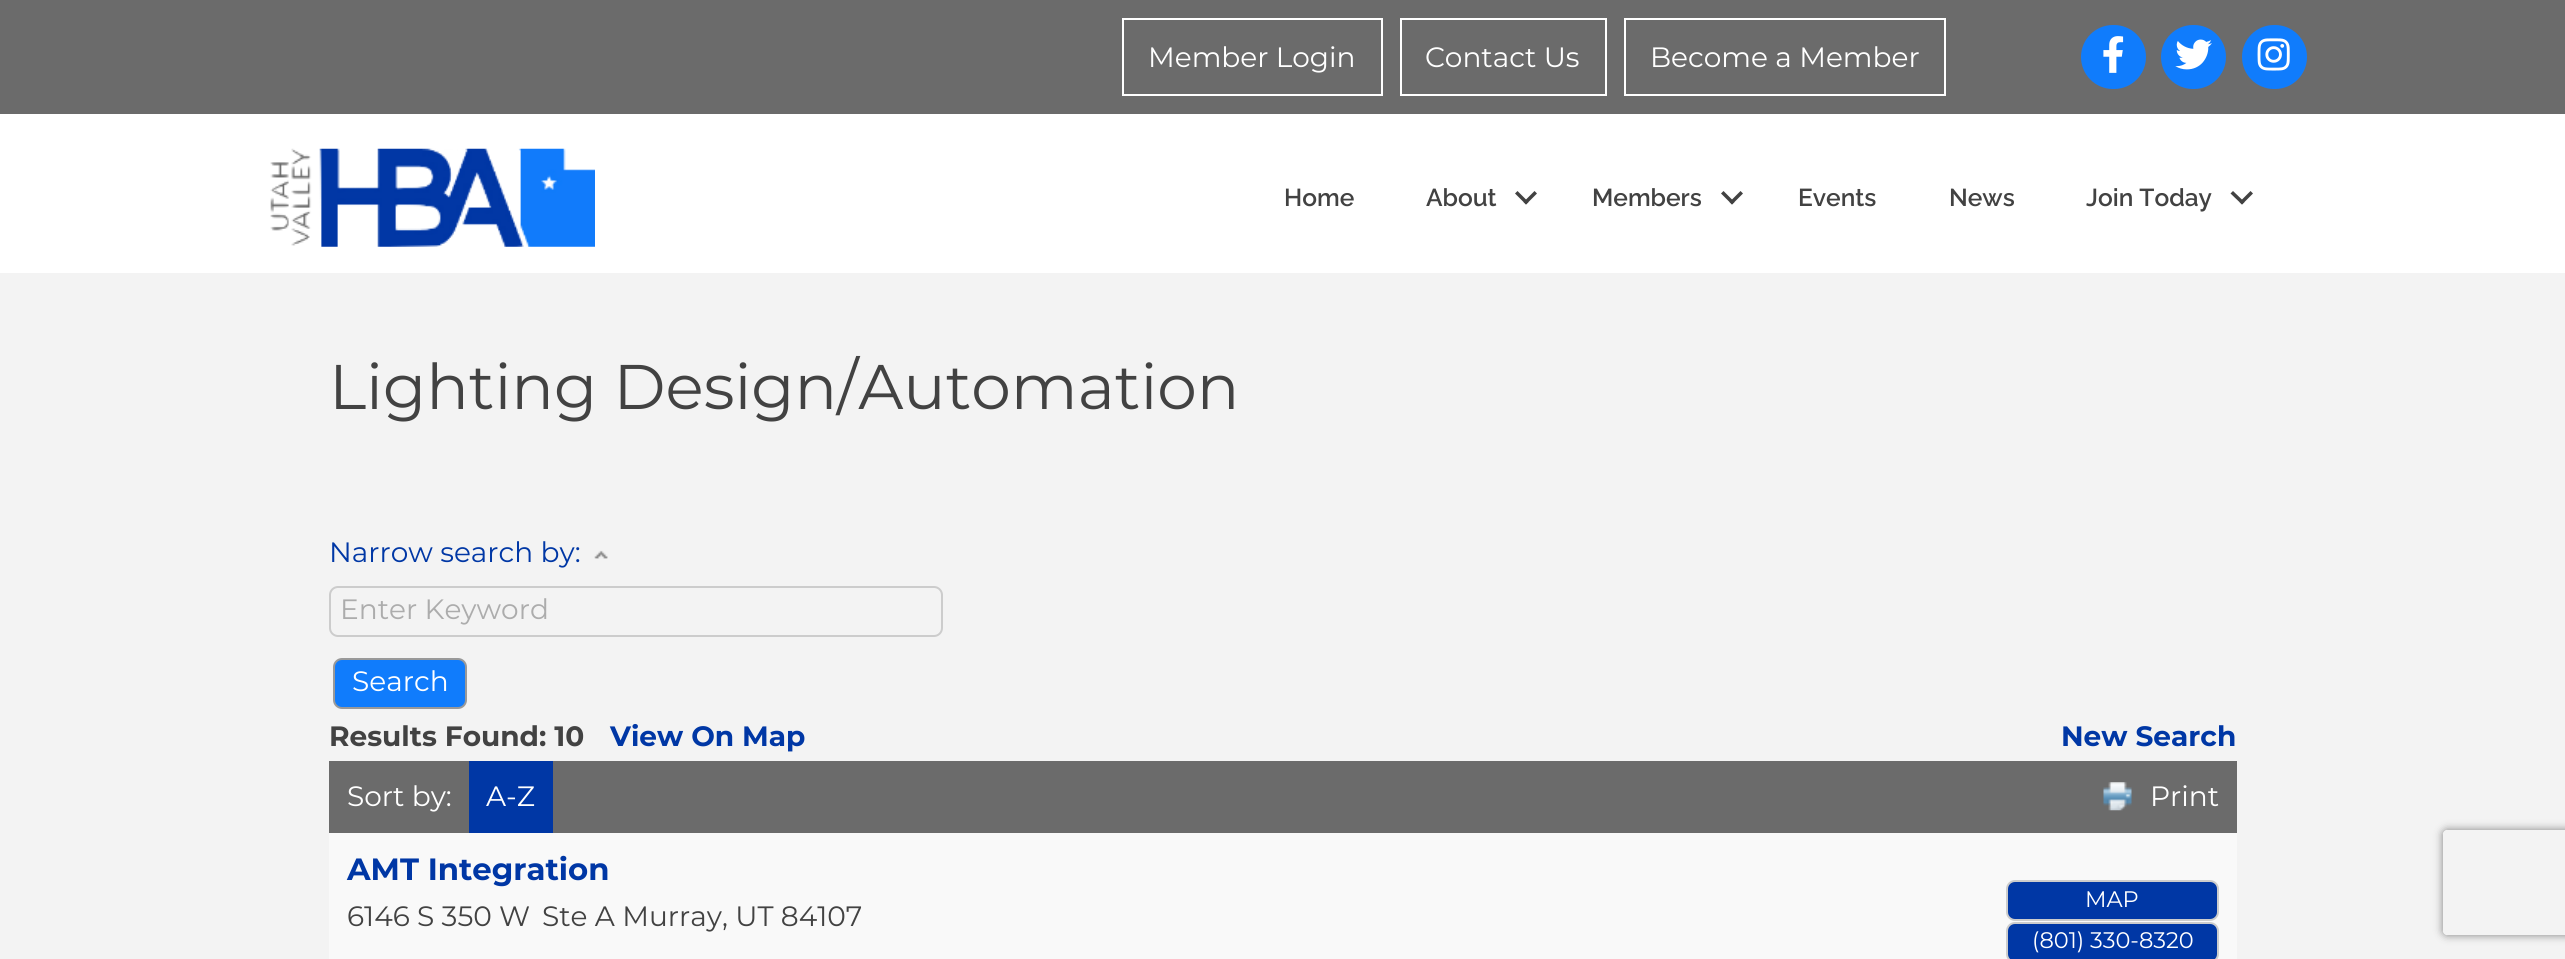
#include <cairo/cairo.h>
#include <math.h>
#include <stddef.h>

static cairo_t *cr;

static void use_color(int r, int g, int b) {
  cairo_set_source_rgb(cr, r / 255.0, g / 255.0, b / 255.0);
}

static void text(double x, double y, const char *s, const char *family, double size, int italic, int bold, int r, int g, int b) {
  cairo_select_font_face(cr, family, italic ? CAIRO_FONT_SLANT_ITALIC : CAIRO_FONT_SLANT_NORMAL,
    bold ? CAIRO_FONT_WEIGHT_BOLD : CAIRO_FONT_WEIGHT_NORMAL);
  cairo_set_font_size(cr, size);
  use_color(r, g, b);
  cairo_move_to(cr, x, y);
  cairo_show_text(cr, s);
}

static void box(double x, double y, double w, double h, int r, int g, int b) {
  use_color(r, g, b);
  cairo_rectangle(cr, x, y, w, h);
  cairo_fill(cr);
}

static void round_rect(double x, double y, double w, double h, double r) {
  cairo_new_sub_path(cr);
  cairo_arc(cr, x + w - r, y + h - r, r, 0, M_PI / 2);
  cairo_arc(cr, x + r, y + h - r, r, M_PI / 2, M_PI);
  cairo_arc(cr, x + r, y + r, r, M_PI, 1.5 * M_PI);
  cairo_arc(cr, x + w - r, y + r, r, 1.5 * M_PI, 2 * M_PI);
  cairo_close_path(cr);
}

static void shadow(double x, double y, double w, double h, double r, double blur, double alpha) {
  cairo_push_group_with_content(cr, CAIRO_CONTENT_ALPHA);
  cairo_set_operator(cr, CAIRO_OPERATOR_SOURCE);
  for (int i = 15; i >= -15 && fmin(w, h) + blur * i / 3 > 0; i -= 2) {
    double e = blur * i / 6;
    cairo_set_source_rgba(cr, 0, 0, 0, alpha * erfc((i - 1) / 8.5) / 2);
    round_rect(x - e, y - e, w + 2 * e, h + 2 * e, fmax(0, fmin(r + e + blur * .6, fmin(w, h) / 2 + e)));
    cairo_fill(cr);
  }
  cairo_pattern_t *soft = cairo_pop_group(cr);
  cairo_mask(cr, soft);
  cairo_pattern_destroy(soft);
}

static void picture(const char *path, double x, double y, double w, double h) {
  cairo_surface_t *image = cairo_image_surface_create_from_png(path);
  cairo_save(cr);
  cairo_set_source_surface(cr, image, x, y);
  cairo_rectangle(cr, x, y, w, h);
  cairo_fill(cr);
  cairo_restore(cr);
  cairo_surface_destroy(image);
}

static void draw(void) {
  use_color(107, 107, 107);
  cairo_paint(cr);
  cairo_rectangle(cr, 1123, 19, 259, 76);
  use_color(255, 255, 255);
  cairo_stroke(cr);
  cairo_rectangle(cr, 1401, 19, 205, 76);
  cairo_stroke(cr);
  cairo_rectangle(cr, 1625, 19, 320, 76);
  cairo_stroke(cr);
  use_color(16, 124, 252);
  round_rect(2081, 25, 65, 64, 32);
  cairo_fill(cr);
  picture("img_01.png", 2103, 36, 21, 37);
  round_rect(2161, 25, 65, 64, 32);
  cairo_fill(cr);
  picture("img_02.png", 2175, 39, 37, 31);
  round_rect(2242, 25, 65, 64, 32);
  cairo_fill(cr);
  picture("img_03.png", 2257, 38, 33, 33);
  box(0, 114, 2565, 159, 255, 255, 255);
  picture("img_04.png", 270, 148, 325, 99);
  use_color(66, 66, 66);
  cairo_new_path(cr);
  cairo_move_to(cr, 1534.5, 191);
  cairo_line_to(cr, 1537, 193.5);
  cairo_line_to(cr, 1526, 204.5);
  cairo_line_to(cr, 1523.5, 202);
  cairo_close_path(cr);
  cairo_fill(cr);
  cairo_new_path(cr);
  cairo_move_to(cr, 1517.5, 191);
  cairo_line_to(cr, 1528.5, 202);
  cairo_line_to(cr, 1526, 204.5);
  cairo_line_to(cr, 1515, 193.5);
  cairo_close_path(cr);
  cairo_fill(cr);
  cairo_new_path(cr);
  cairo_move_to(cr, 1740.5, 191);
  cairo_line_to(cr, 1743, 193.5);
  cairo_line_to(cr, 1732, 204.5);
  cairo_line_to(cr, 1729.5, 202);
  cairo_close_path(cr);
  cairo_fill(cr);
  cairo_new_path(cr);
  cairo_move_to(cr, 1723.5, 191);
  cairo_line_to(cr, 1734.5, 202);
  cairo_line_to(cr, 1732, 204.5);
  cairo_line_to(cr, 1721, 193.5);
  cairo_close_path(cr);
  cairo_fill(cr);
  cairo_new_path(cr);
  cairo_move_to(cr, 2250.5, 191);
  cairo_line_to(cr, 2253, 193.5);
  cairo_line_to(cr, 2242, 204.5);
  cairo_line_to(cr, 2239.5, 202);
  cairo_close_path(cr);
  cairo_fill(cr);
  cairo_new_path(cr);
  cairo_move_to(cr, 2233, 191);
  cairo_line_to(cr, 2244.5, 202);
  cairo_line_to(cr, 2242, 204.5);
  cairo_line_to(cr, 2230.5, 193.5);
  cairo_close_path(cr);
  cairo_fill(cr);
  box(0, 273, 2565, 686, 243, 243, 243);
  picture("img_05.png", 594, 550, 14, 9);
  round_rect(330, 587, 612, 49, 8);
  use_color(204, 204, 204);
  cairo_stroke(cr);
  use_color(16, 124, 252);
  round_rect(334, 659, 132, 49, 8);
  cairo_fill_preserve(cr);
  use_color(153, 153, 153);
  cairo_stroke(cr);
  box(329, 761, 1908, 72, 107, 107, 107);
  box(469, 761, 84, 72, 0, 55, 165);
  picture("img_06.png", 2103, 782, 29, 29);
  box(329, 833, 1908, 126, 249, 249, 249);
  use_color(0, 55, 165);
  round_rect(2007, 881, 211, 39, 8);
  cairo_fill_preserve(cr);
  use_color(204, 204, 204);
  cairo_stroke(cr);
  use_color(0, 55, 165);
  round_rect(2007, 923, 211, 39, 8);
  cairo_fill_preserve(cr);
  use_color(204, 204, 204);
  cairo_stroke(cr);
  cairo_save(cr);
  cairo_set_fill_rule(cr, CAIRO_FILL_RULE_EVEN_ODD);
  cairo_new_path(cr);
  cairo_move_to(cr, 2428, 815);
  cairo_line_to(cr, 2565, 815);
  cairo_line_to(cr, 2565, 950);
  cairo_line_to(cr, 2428, 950);
  cairo_close_path(cr);
  cairo_move_to(cr, 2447, 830);
  cairo_line_to(cr, 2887, 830);
  cairo_curve_to(cr, 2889, 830, 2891, 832, 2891, 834);
  cairo_line_to(cr, 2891, 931);
  cairo_curve_to(cr, 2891, 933, 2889, 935, 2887, 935);
  cairo_line_to(cr, 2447, 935);
  cairo_curve_to(cr, 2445, 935, 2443, 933, 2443, 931);
  cairo_line_to(cr, 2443, 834);
  cairo_curve_to(cr, 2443, 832, 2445, 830, 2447, 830);
  cairo_close_path(cr);
  cairo_clip(cr);
  use_color(128, 128, 128);
  shadow(2443, 830, 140, 105, 4, 4.5, 1);
  cairo_restore(cr);
  text(1148, 67, "Member Login", "Montserrat", 28, 0, 0, 255, 255, 255);
  text(1425, 67, "Contact Us", "Montserrat", 28, 0, 0, 255, 255, 255);
  text(1650, 67, "Become a Member", "Montserrat", 28, 0, 0, 255, 255, 255);
  text(1284, 206, "Home", "Raleway SemiBold", 24.5, 0, 0, 66, 66, 66);
  text(1426, 206, "About", "Raleway SemiBold", 24.5, 0, 0, 66, 66, 66);
  text(1592, 206, "Members", "Raleway SemiBold", 24.5, 0, 0, 66, 66, 66);
  text(1798, 206, "Events", "Raleway SemiBold", 24.5, 0, 0, 66, 66, 66);
  text(1949, 206, "News", "Raleway SemiBold", 24.5, 0, 0, 66, 66, 66);
  text(2086, 206, "Join Today", "Raleway SemiBold", 24.5, 0, 0, 66, 66, 66);
  text(329, 409, "Lighting Design/Automation", "Montserrat", 63, 0, 0, 66, 66, 66);
  text(329, 562, "Narrow search by:", "Montserrat", 28, 0, 0, 0, 55, 165);
  text(340, 619, "Enter Keyword", "Montserrat", 28, 0, 0, 172, 172, 172);
  text(352, 691, "Search", "Montserrat", 28, 0, 0, 255, 255, 255);
  text(329, 746, "Results Found: 10", "Montserrat", 28, 0, 1, 66, 66, 66);
  text(610, 746, "View On Map", "Montserrat", 28, 0, 1, 0, 55, 165);
  text(2061, 746, "New Search", "Montserrat", 28, 0, 1, 0, 55, 165);
  text(347, 806, "Sort by:", "Montserrat", 28, 0, 0, 255, 255, 255);
  text(486, 806, "A-Z", "Montserrat", 28, 0, 0, 255, 255, 255);
  text(2150, 806, "Print", "Montserrat", 28, 0, 0, 255, 255, 255);
  text(347, 880, "AMT Integration", "Montserrat", 30.75, 0, 1, 0, 55, 165);
  text(347, 926, "6146 S 350 W", "Montserrat", 28, 0, 0, 66, 66, 66);
  text(542, 926, "Ste A Murray, UT 84107", "Montserrat", 28, 0, 0, 66, 66, 66);
  text(2085, 907, "MAP", "Montserrat", 22.5, 0, 0, 255, 255, 255);
  text(2032, 948, "(801) 330-8320", "Montserrat", 22.5, 0, 0, 255, 255, 255);
}

int main(void) {
  cairo_surface_t *surface = cairo_image_surface_create(CAIRO_FORMAT_RGB24, 2565, 959);
  cr = cairo_create(surface);
  cairo_font_options_t *options = cairo_font_options_create();
  cairo_font_options_set_hint_metrics(options, CAIRO_HINT_METRICS_OFF);
  cairo_font_options_set_hint_style(options, CAIRO_HINT_STYLE_NONE);
  cairo_set_font_options(cr, options);
  cairo_set_miter_limit(cr, 4);
  draw();
  cairo_surface_write_to_png(surface, "out.png");
  cairo_font_options_destroy(options);
  cairo_destroy(cr);
  cairo_surface_destroy(surface);
  return 0;
}
